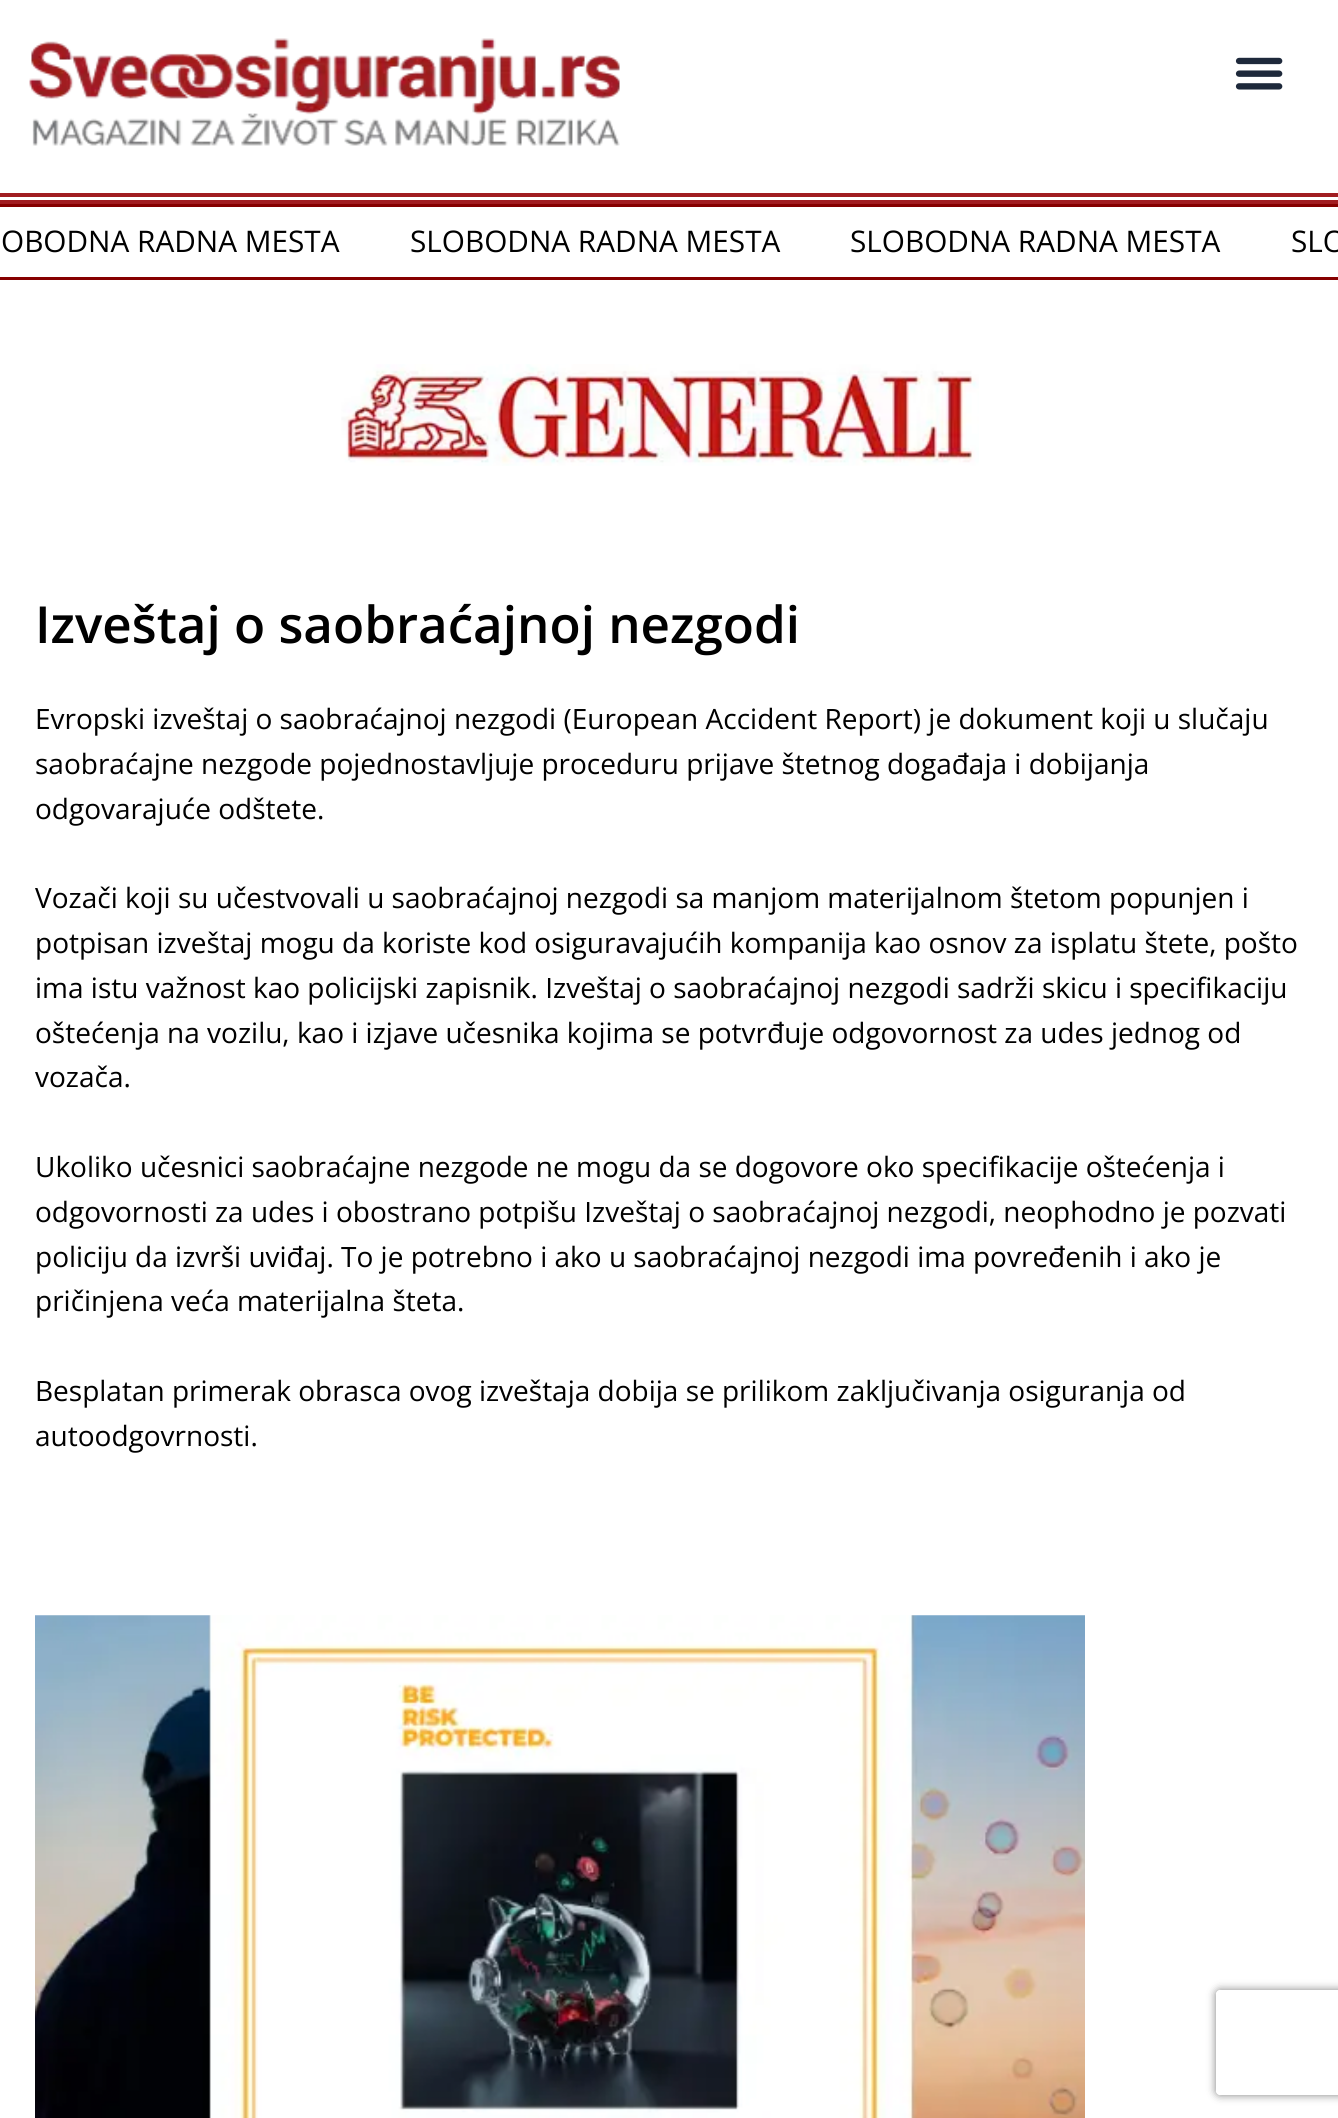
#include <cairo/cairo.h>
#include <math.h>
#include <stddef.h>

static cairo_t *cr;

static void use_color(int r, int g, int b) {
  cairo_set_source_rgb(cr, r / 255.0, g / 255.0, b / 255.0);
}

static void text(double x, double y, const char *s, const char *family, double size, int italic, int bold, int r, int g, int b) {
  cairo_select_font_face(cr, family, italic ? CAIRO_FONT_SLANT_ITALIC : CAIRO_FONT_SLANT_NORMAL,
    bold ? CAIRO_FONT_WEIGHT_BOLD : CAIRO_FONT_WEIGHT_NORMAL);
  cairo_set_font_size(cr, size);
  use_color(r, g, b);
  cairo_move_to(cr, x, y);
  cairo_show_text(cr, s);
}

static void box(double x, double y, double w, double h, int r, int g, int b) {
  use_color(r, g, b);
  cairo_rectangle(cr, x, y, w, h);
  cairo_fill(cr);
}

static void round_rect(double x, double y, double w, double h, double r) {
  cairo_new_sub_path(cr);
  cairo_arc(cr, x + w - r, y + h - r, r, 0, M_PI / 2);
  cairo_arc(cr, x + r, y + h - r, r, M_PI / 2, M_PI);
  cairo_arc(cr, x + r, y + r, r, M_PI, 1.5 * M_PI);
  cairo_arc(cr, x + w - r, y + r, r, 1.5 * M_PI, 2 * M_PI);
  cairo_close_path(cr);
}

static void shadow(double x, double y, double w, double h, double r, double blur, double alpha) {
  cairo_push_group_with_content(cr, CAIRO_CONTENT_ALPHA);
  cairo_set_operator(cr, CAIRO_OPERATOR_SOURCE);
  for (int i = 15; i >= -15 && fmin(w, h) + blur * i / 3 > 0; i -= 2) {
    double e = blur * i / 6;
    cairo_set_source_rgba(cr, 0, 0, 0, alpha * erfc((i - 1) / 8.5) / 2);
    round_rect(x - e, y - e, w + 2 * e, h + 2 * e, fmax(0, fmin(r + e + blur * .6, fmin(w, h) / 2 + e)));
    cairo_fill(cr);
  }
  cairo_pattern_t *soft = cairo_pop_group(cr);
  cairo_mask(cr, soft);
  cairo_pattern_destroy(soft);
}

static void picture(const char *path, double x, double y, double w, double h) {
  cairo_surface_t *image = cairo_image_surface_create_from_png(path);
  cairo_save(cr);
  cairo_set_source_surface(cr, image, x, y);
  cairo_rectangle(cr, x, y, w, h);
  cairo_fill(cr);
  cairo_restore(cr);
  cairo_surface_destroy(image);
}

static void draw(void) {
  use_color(255, 255, 255);
  cairo_paint(cr);
  picture("img_01.png", 29, 38, 591, 108);
  picture("img_02.png", 1235, 57, 48, 33);
  box(0, 193, 1338, 4, 161, 29, 33);
  box(0, 200, 1338, 4, 161, 29, 33);
  box(0, 204, 1338, 3, 134, 0, 0);
  box(0, 277, 1338, 3, 134, 0, 0);
  picture("img_03.png", 341, 364, 638, 102);
  picture("img_04.png", 35, 1615, 1050, 503);
  cairo_save(cr);
  cairo_set_fill_rule(cr, CAIRO_FILL_RULE_EVEN_ODD);
  cairo_new_path(cr);
  cairo_move_to(cr, 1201, 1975);
  cairo_line_to(cr, 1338, 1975);
  cairo_line_to(cr, 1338, 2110);
  cairo_line_to(cr, 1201, 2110);
  cairo_close_path(cr);
  cairo_move_to(cr, 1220, 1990);
  cairo_line_to(cr, 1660, 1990);
  cairo_curve_to(cr, 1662, 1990, 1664, 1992, 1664, 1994);
  cairo_line_to(cr, 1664, 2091);
  cairo_curve_to(cr, 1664, 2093, 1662, 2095, 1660, 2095);
  cairo_line_to(cr, 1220, 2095);
  cairo_curve_to(cr, 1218, 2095, 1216, 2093, 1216, 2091);
  cairo_line_to(cr, 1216, 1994);
  cairo_curve_to(cr, 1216, 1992, 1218, 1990, 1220, 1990);
  cairo_close_path(cr);
  cairo_clip(cr);
  use_color(128, 128, 128);
  shadow(1216, 1990, 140, 105, 4, 4.5, 1);
  cairo_restore(cr);
  text(1, 252, "OBODNA RADNA MESTA", "Open Sans", 29.75, 0, 0, 0, 0, 0);
  text(410, 252, "SLOBODNA RADNA MESTA", "Open Sans", 29.75, 0, 0, 0, 0, 0);
  text(850, 252, "SLOBODNA RADNA MESTA", "Open Sans", 29.75, 0, 0, 0, 0, 0);
  text(1291, 252, "SLO", "Open Sans", 29.75, 0, 0, 0, 0, 0);
  text(35, 643, "Izveštaj o saobraćajnoj nezgodi", "Open Sans SemiBold", 51.1, 0, 0, 0, 0, 0);
  text(35, 729, "Evropski izveštaj o saobraćajnoj nezgodi (European Accident Report) je dokument koji u slučaju", "Open Sans", 28, 0, 0, 0, 0, 0);
  text(35, 774, "saobraćajne nezgode pojednostavljuje proceduru prijave štetnog događaja i dobijanja", "Open Sans", 28, 0, 0, 0, 0, 0);
  text(35, 819, "odgovarajuće odštete.", "Open Sans", 28, 0, 0, 0, 0, 0);
  text(35, 908, "Vozači koji su učestvovali u saobraćajnoj nezgodi sa manjom materijalnom štetom popunjen i", "Open Sans", 28, 0, 0, 0, 0, 0);
  text(35, 953, "potpisan izveštaj mogu da koriste kod osiguravajućih kompanija kao osnov za isplatu štete, pošto", "Open Sans", 28, 0, 0, 0, 0, 0);
  text(35, 998, "ima istu važnost kao policijski zapisnik. Izveštaj o saobraćajnoj nezgodi sadrži skicu i specifikaciju", "Open Sans", 28, 0, 0, 0, 0, 0);
  text(35, 1043, "oštećenja na vozilu, kao i izjave učesnika kojima se potvrđuje odgovornost za udes jednog od", "Open Sans", 28, 0, 0, 0, 0, 0);
  text(35, 1087, "vozača.", "Open Sans", 28, 0, 0, 0, 0, 0);
  text(35, 1177, "Ukoliko učesnici saobraćajne nezgode ne mogu da se dogovore oko specifikacije oštećenja i", "Open Sans", 28, 0, 0, 0, 0, 0);
  text(35, 1222, "odgovornosti za udes i obostrano potpišu Izveštaj o saobraćajnoj nezgodi, neophodno je pozvati", "Open Sans", 28, 0, 0, 0, 0, 0);
  text(35, 1267, "policiju da izvrši uviđaj. To je potrebno i ako u saobraćajnoj nezgodi ima povređenih i ako je", "Open Sans", 28, 0, 0, 0, 0, 0);
  text(35, 1311, "pričinjena veća materijalna šteta.", "Open Sans", 28, 0, 0, 0, 0, 0);
  text(35, 1401, "Besplatan primerak obrasca ovog izveštaja dobija se prilikom zaključivanja osiguranja od", "Open Sans", 28, 0, 0, 0, 0, 0);
  text(35, 1446, "autoodgovrnosti.", "Open Sans", 28, 0, 0, 0, 0, 0);
}

int main(void) {
  cairo_surface_t *surface = cairo_image_surface_create(CAIRO_FORMAT_RGB24, 1338, 2118);
  cr = cairo_create(surface);
  cairo_font_options_t *options = cairo_font_options_create();
  cairo_font_options_set_hint_metrics(options, CAIRO_HINT_METRICS_OFF);
  cairo_font_options_set_hint_style(options, CAIRO_HINT_STYLE_NONE);
  cairo_set_font_options(cr, options);
  cairo_set_miter_limit(cr, 4);
  draw();
  cairo_surface_write_to_png(surface, "out.png");
  cairo_font_options_destroy(options);
  cairo_destroy(cr);
  cairo_surface_destroy(surface);
  return 0;
}
